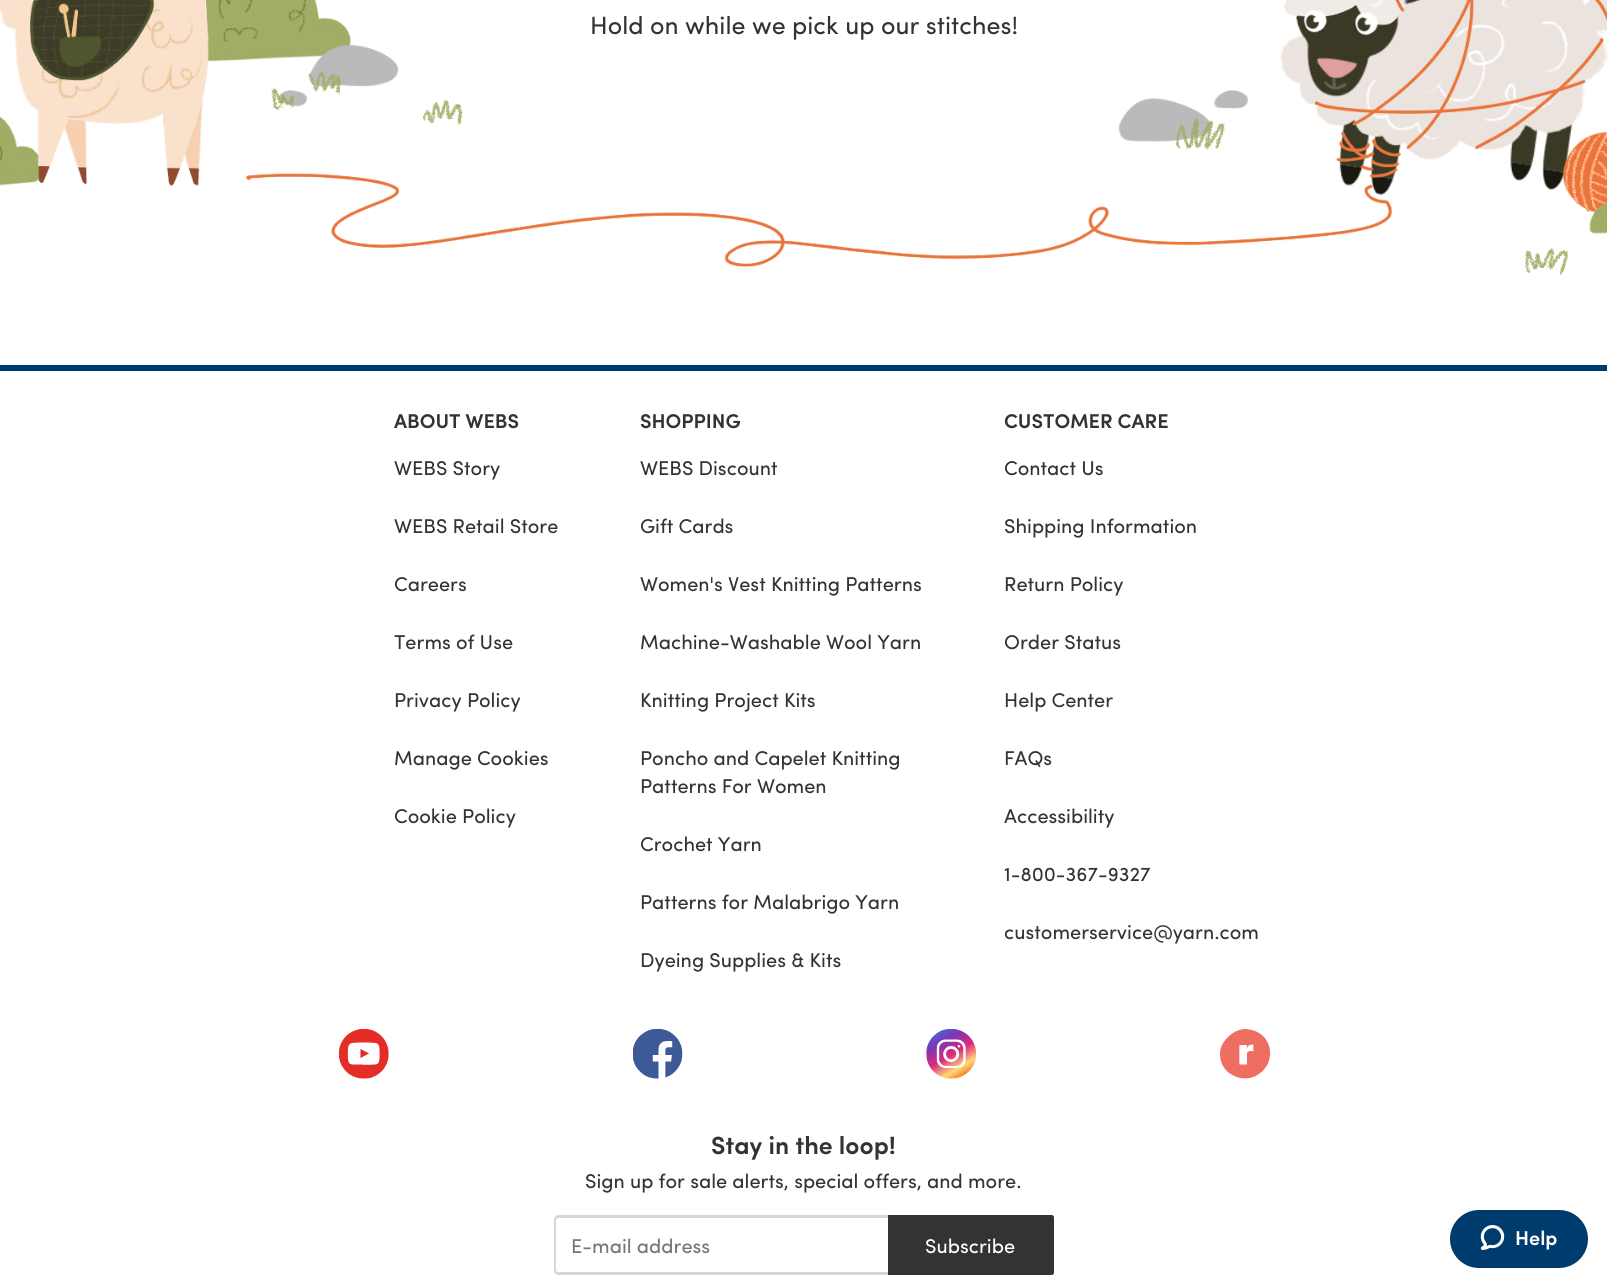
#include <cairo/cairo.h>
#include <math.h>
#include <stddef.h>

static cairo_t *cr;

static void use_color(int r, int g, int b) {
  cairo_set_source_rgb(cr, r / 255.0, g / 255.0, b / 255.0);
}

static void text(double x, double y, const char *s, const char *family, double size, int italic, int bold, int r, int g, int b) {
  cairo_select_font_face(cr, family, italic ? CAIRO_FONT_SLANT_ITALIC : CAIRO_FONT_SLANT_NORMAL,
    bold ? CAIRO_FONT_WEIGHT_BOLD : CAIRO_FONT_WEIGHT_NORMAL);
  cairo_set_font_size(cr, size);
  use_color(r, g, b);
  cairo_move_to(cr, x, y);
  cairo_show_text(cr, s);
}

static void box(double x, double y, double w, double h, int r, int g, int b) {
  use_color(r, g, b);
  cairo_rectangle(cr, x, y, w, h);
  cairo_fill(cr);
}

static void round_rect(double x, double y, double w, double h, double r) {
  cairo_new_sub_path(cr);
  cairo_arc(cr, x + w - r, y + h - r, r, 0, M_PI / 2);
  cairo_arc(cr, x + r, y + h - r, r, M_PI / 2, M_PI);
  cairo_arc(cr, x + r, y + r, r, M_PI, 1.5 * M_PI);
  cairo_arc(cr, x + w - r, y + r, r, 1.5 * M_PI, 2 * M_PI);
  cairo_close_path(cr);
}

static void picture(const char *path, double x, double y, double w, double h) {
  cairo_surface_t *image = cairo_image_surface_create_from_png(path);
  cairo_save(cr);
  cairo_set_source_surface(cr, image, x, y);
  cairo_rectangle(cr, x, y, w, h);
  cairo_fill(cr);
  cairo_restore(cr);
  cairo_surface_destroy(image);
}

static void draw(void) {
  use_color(255, 255, 255);
  cairo_paint(cr);
  picture("img_01.png", 0, 0, 1607, 275);
  box(0, 365, 1607, 6, 0, 59, 110);
  picture("img_02.png", 339, 1029, 50, 50);
  picture("img_03.png", 633, 1029, 50, 50);
  picture("img_04.png", 926, 1029, 50, 50);
  picture("img_05.png", 1220, 1029, 50, 50);
  use_color(214, 214, 215);
  cairo_set_fill_rule(cr, CAIRO_FILL_RULE_EVEN_ODD);
  cairo_new_path(cr);
  cairo_move_to(cr, 559, 1215);
  cairo_line_to(cr, 888, 1215);
  cairo_line_to(cr, 888, 1275);
  cairo_line_to(cr, 559, 1275);
  cairo_curve_to(cr, 556, 1275, 554, 1273, 554, 1270);
  cairo_line_to(cr, 554, 1220);
  cairo_curve_to(cr, 554, 1217, 556, 1215, 559, 1215);
  cairo_close_path(cr);
  cairo_move_to(cr, 559, 1218);
  cairo_line_to(cr, 888, 1218);
  cairo_line_to(cr, 888, 1272);
  cairo_line_to(cr, 559, 1272);
  cairo_curve_to(cr, 557, 1272, 556, 1271, 556, 1270);
  cairo_line_to(cr, 556, 1220);
  cairo_curve_to(cr, 556, 1219, 557, 1218, 559, 1218);
  cairo_close_path(cr);
  cairo_fill(cr);
  use_color(51, 51, 51);
  cairo_new_path(cr);
  cairo_move_to(cr, 888, 1215);
  cairo_line_to(cr, 1051.5, 1215);
  cairo_curve_to(cr, 1053, 1215, 1054, 1216, 1054, 1217.5);
  cairo_line_to(cr, 1054, 1272.5);
  cairo_curve_to(cr, 1054, 1274, 1053, 1275, 1051.5, 1275);
  cairo_line_to(cr, 888, 1275);
  cairo_close_path(cr);
  cairo_fill(cr);
  use_color(0, 59, 110);
  round_rect(1450, 1210, 138, 58, 29);
  cairo_fill(cr);
  picture("img_06.png", 1480, 1225, 25, 25);
  text(590, 34, "Hold on while we pick up our stitches!", "Sofia", 25, 0, 0, 51, 51, 51);
  text(394, 428, "ABOUT WEBS", "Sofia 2", 20, 0, 0, 51, 51, 51);
  text(394, 475, "WEBS Story", "Sofia", 20, 0, 0, 51, 51, 51);
  text(394, 533, "WEBS Retail Store", "Sofia", 20, 0, 0, 51, 51, 51);
  text(394, 591, "Careers", "Sofia", 20, 0, 0, 51, 51, 51);
  text(394, 649, "Terms of Use", "Sofia", 20, 0, 0, 51, 51, 51);
  text(394, 707, "Privacy Policy", "Sofia", 20, 0, 0, 51, 51, 51);
  text(394, 765, "Manage Cookies", "Sofia", 20, 0, 0, 51, 51, 51);
  text(394, 823, "Cookie Policy", "Sofia", 20, 0, 0, 51, 51, 51);
  text(640, 428, "SHOPPING", "Sofia 2", 20, 0, 0, 51, 51, 51);
  text(640, 475, "WEBS Discount", "Sofia", 20, 0, 0, 51, 51, 51);
  text(640, 533, "Gift Cards", "Sofia", 20, 0, 0, 51, 51, 51);
  text(640, 591, "Women's Vest Knitting Patterns", "Sofia", 20, 0, 0, 51, 51, 51);
  text(640, 649, "Machine-Washable Wool Yarn", "Sofia", 20, 0, 0, 51, 51, 51);
  text(640, 707, "Knitting Project Kits", "Sofia", 20, 0, 0, 51, 51, 51);
  text(640, 765, "Poncho and Capelet Knitting", "Sofia", 20, 0, 0, 51, 51, 51);
  text(640, 793, "Patterns For Women", "Sofia", 20, 0, 0, 51, 51, 51);
  text(640, 851, "Crochet Yarn", "Sofia", 20, 0, 0, 51, 51, 51);
  text(640, 909, "Patterns for Malabrigo Yarn", "Sofia", 20, 0, 0, 51, 51, 51);
  text(640, 967, "Dyeing Supplies & Kits", "Sofia", 20, 0, 0, 51, 51, 51);
  text(1004, 428, "CUSTOMER CARE", "Sofia 2", 20, 0, 0, 51, 51, 51);
  text(1004, 475, "Contact Us", "Sofia", 20, 0, 0, 51, 51, 51);
  text(1004, 533, "Shipping Information", "Sofia", 20, 0, 0, 51, 51, 51);
  text(1004, 591, "Return Policy", "Sofia", 20, 0, 0, 51, 51, 51);
  text(1004, 649, "Order Status", "Sofia", 20, 0, 0, 51, 51, 51);
  text(1004, 707, "Help Center", "Sofia", 20, 0, 0, 51, 51, 51);
  text(1004, 765, "FAQs", "Sofia", 20, 0, 0, 51, 51, 51);
  text(1004, 823, "Accessibility", "Sofia", 20, 0, 0, 51, 51, 51);
  text(1004, 881, "1-800-367-9327", "Sofia", 20, 0, 0, 51, 51, 51);
  text(1004, 939, "customerservice@yarn.com", "Sofia", 20, 0, 0, 51, 51, 51);
  text(711, 1154, "Stay in the loop!", "Sofia 2", 25, 0, 0, 51, 51, 51);
  text(585, 1188, "Sign up for sale alerts, special offers, and more.", "Sofia", 20, 0, 0, 51, 51, 51);
  text(571, 1253, "E-mail address", "Sofia", 20, 0, 0, 117, 117, 117);
  text(925, 1253, "Subscribe", "Sofia", 20, 0, 0, 255, 255, 255);
  text(1515, 1245, "Help", "Sofia 2", 20, 0, 0, 255, 255, 255);
}

int main(void) {
  cairo_surface_t *surface = cairo_image_surface_create(CAIRO_FORMAT_RGB24, 1607, 1287);
  cr = cairo_create(surface);
  cairo_font_options_t *options = cairo_font_options_create();
  cairo_font_options_set_hint_metrics(options, CAIRO_HINT_METRICS_OFF);
  cairo_font_options_set_hint_style(options, CAIRO_HINT_STYLE_NONE);
  cairo_set_font_options(cr, options);
  cairo_set_miter_limit(cr, 4);
  draw();
  cairo_surface_write_to_png(surface, "out.png");
  cairo_font_options_destroy(options);
  cairo_destroy(cr);
  cairo_surface_destroy(surface);
  return 0;
}
